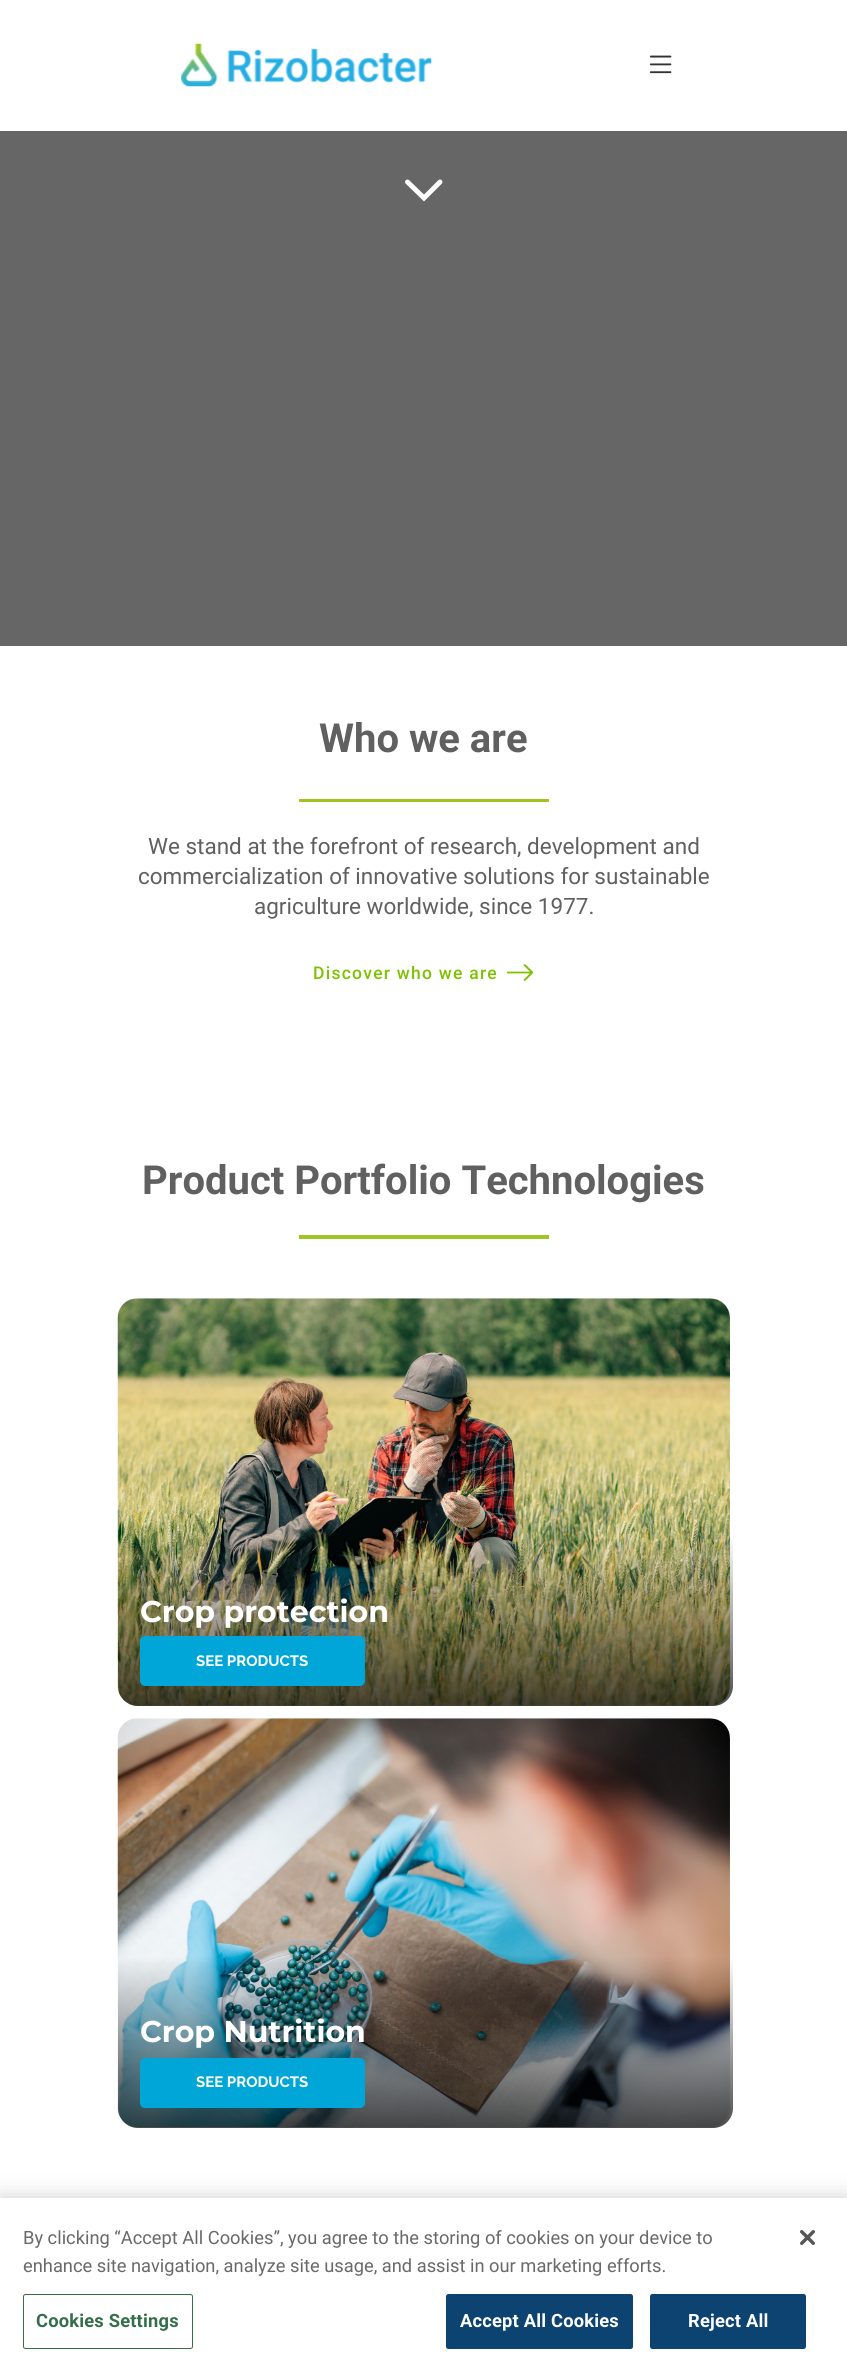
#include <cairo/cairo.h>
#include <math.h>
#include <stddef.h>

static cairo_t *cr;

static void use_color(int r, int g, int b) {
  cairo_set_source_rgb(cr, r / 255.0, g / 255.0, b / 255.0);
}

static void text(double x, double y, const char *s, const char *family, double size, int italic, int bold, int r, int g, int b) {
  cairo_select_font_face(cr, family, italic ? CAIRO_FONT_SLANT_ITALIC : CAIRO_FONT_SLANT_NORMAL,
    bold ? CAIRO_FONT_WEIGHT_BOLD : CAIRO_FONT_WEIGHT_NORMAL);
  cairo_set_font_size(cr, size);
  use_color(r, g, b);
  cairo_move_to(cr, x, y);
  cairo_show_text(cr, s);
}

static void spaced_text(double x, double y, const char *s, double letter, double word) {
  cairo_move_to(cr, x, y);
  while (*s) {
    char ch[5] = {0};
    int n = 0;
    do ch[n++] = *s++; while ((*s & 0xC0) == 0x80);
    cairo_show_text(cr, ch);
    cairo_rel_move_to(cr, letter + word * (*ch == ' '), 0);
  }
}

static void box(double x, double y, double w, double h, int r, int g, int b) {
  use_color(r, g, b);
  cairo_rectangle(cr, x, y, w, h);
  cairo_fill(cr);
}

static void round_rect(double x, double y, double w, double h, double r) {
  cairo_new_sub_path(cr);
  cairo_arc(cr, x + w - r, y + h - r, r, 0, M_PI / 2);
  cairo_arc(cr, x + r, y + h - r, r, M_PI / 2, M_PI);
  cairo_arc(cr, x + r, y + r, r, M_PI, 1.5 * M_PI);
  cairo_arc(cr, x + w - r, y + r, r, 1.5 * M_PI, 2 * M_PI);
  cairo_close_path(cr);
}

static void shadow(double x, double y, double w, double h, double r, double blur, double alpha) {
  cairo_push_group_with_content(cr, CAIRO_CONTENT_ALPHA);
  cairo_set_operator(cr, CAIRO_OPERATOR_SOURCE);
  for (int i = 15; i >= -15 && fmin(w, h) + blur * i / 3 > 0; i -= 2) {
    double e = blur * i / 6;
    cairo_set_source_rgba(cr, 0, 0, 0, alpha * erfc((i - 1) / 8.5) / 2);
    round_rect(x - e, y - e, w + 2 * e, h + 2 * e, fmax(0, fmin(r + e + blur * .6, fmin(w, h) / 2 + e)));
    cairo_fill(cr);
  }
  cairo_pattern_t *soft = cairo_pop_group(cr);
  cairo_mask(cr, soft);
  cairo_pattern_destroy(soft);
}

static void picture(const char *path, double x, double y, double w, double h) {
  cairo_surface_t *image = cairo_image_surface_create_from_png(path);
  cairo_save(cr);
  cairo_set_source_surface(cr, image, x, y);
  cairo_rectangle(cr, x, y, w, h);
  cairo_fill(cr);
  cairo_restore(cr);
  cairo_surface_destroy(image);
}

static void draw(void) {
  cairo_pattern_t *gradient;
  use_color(255, 255, 255);
  cairo_paint(cr);
  picture("img_01.png", 181, 43, 251, 44);
  picture("img_02.png", 649, 55, 23, 19);
  box(0, 131, 847, 515, 102, 102, 102);
  cairo_new_path(cr);
  cairo_move_to(cr, 407.5, 182);
  cairo_line_to(cr, 424, 198);
  cairo_line_to(cr, 440, 182);
  use_color(255, 255, 255);
  cairo_set_line_width(cr, 4.9);
  cairo_set_line_cap(cr, CAIRO_LINE_CAP_ROUND);
  cairo_stroke(cr);
  box(299, 799, 250, 3, 160, 196, 34);
  picture("img_03.png", 506, 964, 28, 17);
  box(299, 1235, 250, 4, 160, 196, 34);
  picture("img_04.png", 117, 1298, 613, 408);
  gradient = cairo_pattern_create_linear(425, 1299, 425, 1706);
  cairo_pattern_add_color_stop_rgba(gradient, 0.58, 0, 0, 0, 0);
  cairo_pattern_add_color_stop_rgba(gradient, 1, 0, 0, 0, 0.7);
  cairo_set_source(cr, gradient);
  cairo_pattern_destroy(gradient);
  round_rect(118, 1299, 615, 407, 20);
  cairo_fill(cr);
  use_color(0, 166, 215);
  round_rect(140, 1636, 225, 50, 5);
  cairo_fill(cr);
  picture("img_05.png", 117, 1718, 613, 409);
  gradient = cairo_pattern_create_linear(425, 1719, 425, 2128);
  cairo_pattern_add_color_stop_rgba(gradient, 0.58, 0, 0, 0, 0);
  cairo_pattern_add_color_stop_rgba(gradient, 1, 0, 0, 0, 0.7);
  cairo_set_source(cr, gradient);
  cairo_pattern_destroy(gradient);
  round_rect(118, 1719, 615, 409, 20);
  cairo_fill(cr);
  use_color(0, 166, 215);
  round_rect(140, 2058, 225, 50, 5);
  cairo_fill(cr);
  use_color(0, 0, 0);
  shadow(0, 2198, 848, 168, 0, 11, 0.2);
  box(0, 2198, 847, 168, 255, 255, 255);
  round_rect(23.5, 2294.5, 169, 54, 2);
  use_color(52, 110, 74);
  cairo_set_line_width(cr, 1);
  cairo_set_line_cap(cr, CAIRO_LINE_CAP_BUTT);
  cairo_stroke(cr);
  use_color(13, 67, 113);
  round_rect(446.5, 2294.5, 186, 54, 2);
  cairo_fill_preserve(cr);
  cairo_stroke(cr);
  round_rect(650.5, 2294.5, 155, 54, 2);
  cairo_fill_preserve(cr);
  cairo_stroke(cr);
  picture("img_06.png", 800, 2230, 15, 15);
  text(319, 752, "Who we are", "Roboto", 40, 0, 1, 96, 96, 96);
  text(148, 854, "We stand at the forefront of research, development and", "Roboto", 22.5, 0, 0, 96, 96, 96);
  text(138, 884, "commercialization of innovative solutions for sustainable", "Roboto", 22.5, 0, 0, 96, 96, 96);
  text(254, 914, "agriculture worldwide, since 1977.", "Roboto", 22.5, 0, 0, 96, 96, 96);
  cairo_select_font_face(cr, "Roboto Medium", CAIRO_FONT_SLANT_NORMAL, CAIRO_FONT_WEIGHT_NORMAL);
  cairo_set_font_size(cr, 17.5);
  use_color(125, 194, 0);
  spaced_text(313, 979, "Discover who we are", 1.25, 0);
  text(142, 1194, "Product Portfolio Technologies", "Roboto", 40, 0, 1, 96, 96, 96);
  text(140, 1622, "Crop protection", "Montserrat", 30, 0, 1, 255, 255, 255);
  text(196, 1666, "SEE PRODUCTS", "Raleway", 15, 0, 1, 255, 255, 255);
  text(140, 2042, "Crop Nutrition", "Montserrat", 30, 0, 1, 255, 255, 255);
  text(196, 2087, "SEE PRODUCTS", "Raleway", 15, 0, 1, 255, 255, 255);
  text(23, 2244, "By clicking “Accept All Cookies”, you agree to the storing of cookies on your device to", "Roboto", 18.3, 0, 0, 105, 105, 105);
  text(23, 2272, "enhance site navigation, analyze site usage, and assist in our marketing efforts.", "Roboto", 18.3, 0, 0, 105, 105, 105);
  cairo_select_font_face(cr, "Roboto", CAIRO_FONT_SLANT_NORMAL, CAIRO_FONT_WEIGHT_BOLD);
  use_color(52, 110, 74);
  spaced_text(36, 2327, "Cookies Settings", 0.2, 0);
  use_color(255, 255, 255);
  spaced_text(460, 2327, "Accept All Cookies", 0.2, 0);
  spaced_text(688, 2327, "Reject All", 0.2, 0);
}

int main(void) {
  cairo_surface_t *surface = cairo_image_surface_create(CAIRO_FORMAT_RGB24, 847, 2366);
  cr = cairo_create(surface);
  cairo_font_options_t *options = cairo_font_options_create();
  cairo_font_options_set_hint_metrics(options, CAIRO_HINT_METRICS_OFF);
  cairo_font_options_set_hint_style(options, CAIRO_HINT_STYLE_NONE);
  cairo_set_font_options(cr, options);
  cairo_set_miter_limit(cr, 4);
  draw();
  cairo_surface_write_to_png(surface, "out.png");
  cairo_font_options_destroy(options);
  cairo_destroy(cr);
  cairo_surface_destroy(surface);
  return 0;
}
